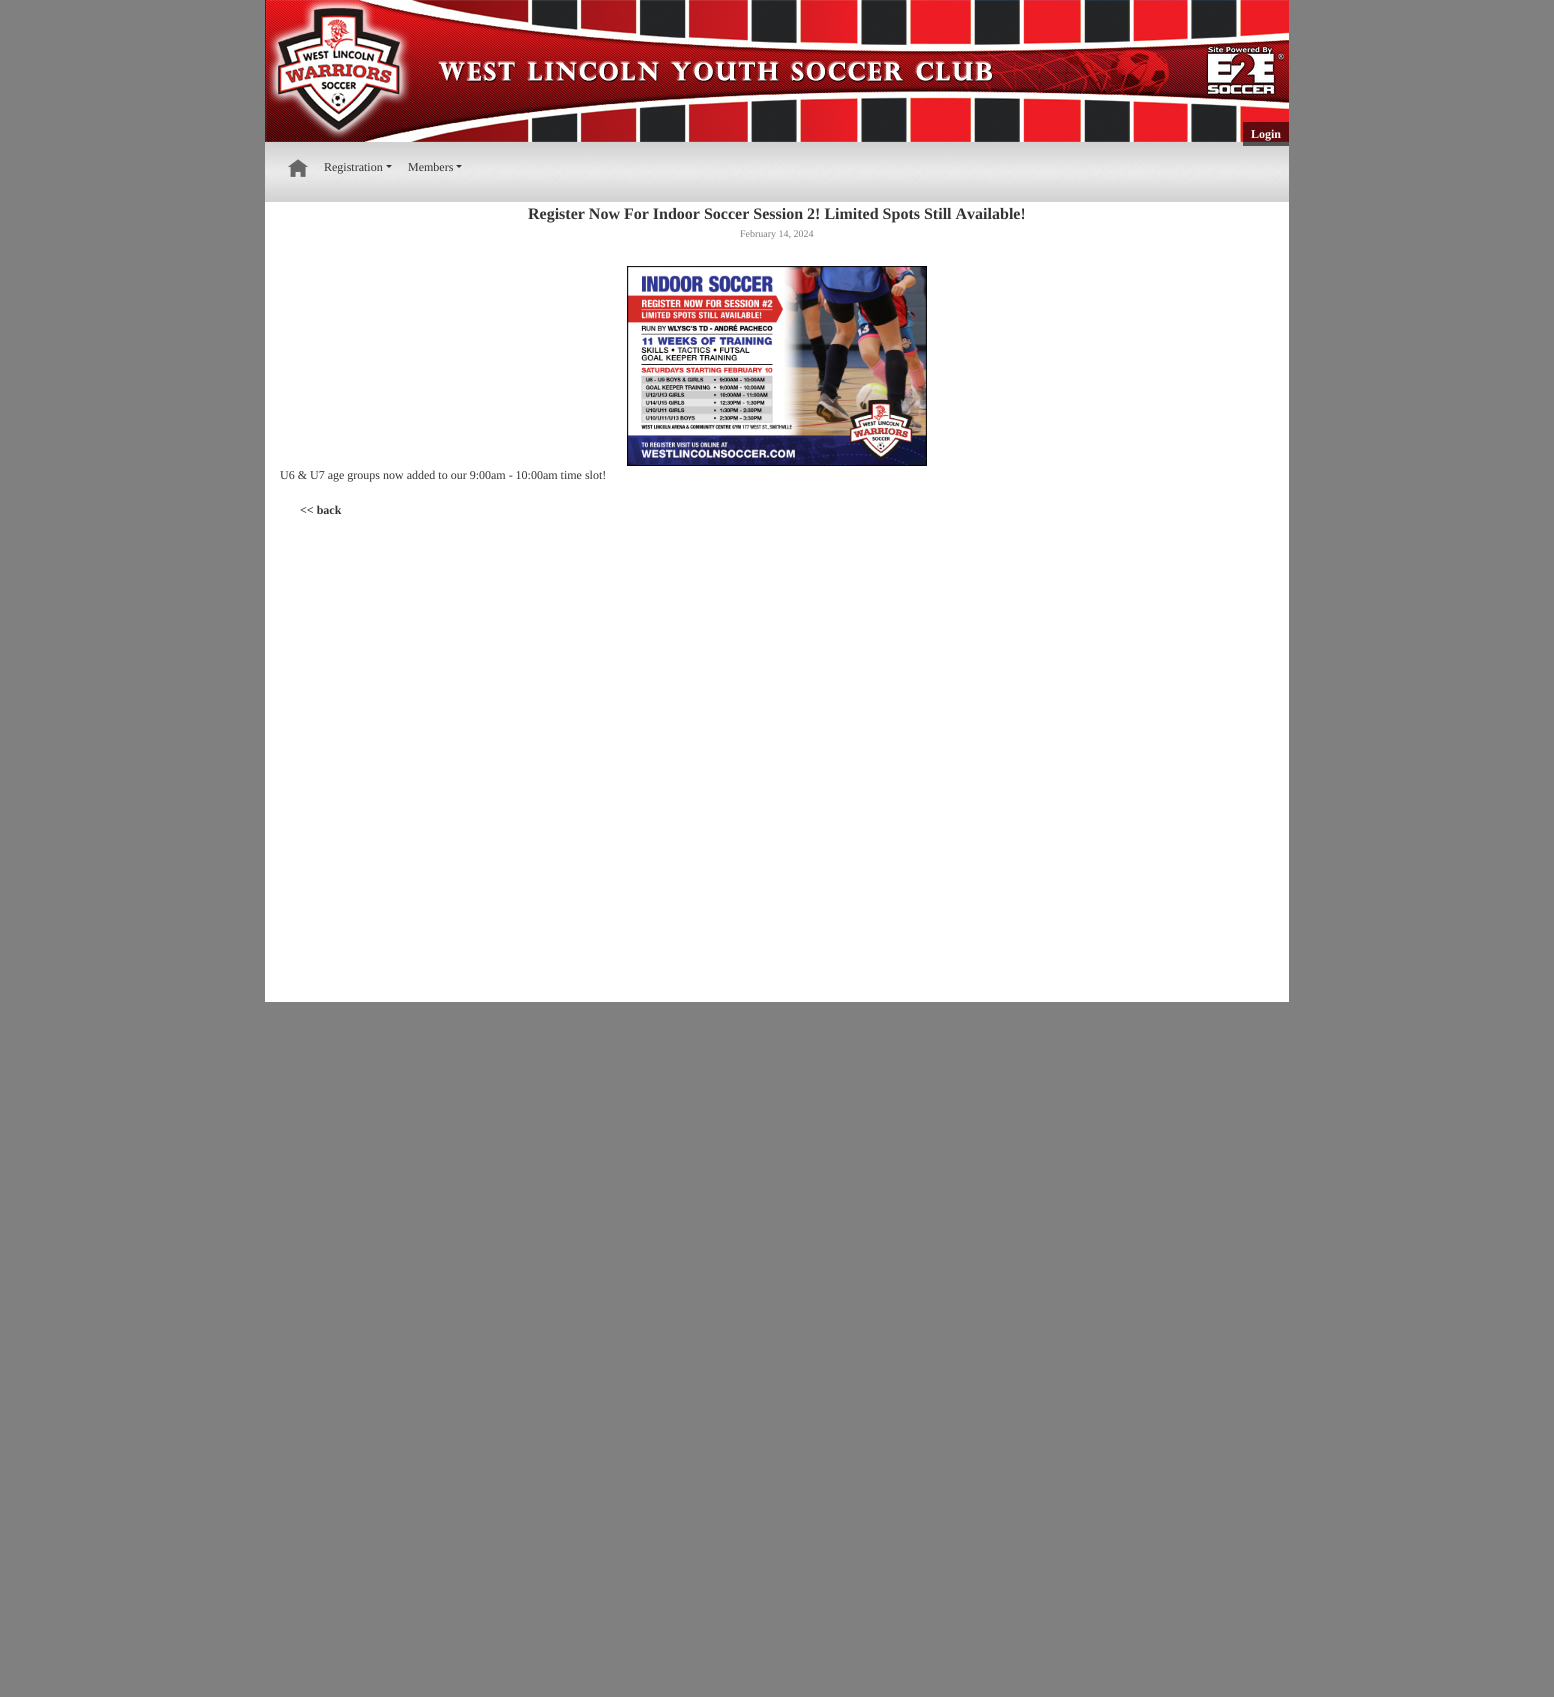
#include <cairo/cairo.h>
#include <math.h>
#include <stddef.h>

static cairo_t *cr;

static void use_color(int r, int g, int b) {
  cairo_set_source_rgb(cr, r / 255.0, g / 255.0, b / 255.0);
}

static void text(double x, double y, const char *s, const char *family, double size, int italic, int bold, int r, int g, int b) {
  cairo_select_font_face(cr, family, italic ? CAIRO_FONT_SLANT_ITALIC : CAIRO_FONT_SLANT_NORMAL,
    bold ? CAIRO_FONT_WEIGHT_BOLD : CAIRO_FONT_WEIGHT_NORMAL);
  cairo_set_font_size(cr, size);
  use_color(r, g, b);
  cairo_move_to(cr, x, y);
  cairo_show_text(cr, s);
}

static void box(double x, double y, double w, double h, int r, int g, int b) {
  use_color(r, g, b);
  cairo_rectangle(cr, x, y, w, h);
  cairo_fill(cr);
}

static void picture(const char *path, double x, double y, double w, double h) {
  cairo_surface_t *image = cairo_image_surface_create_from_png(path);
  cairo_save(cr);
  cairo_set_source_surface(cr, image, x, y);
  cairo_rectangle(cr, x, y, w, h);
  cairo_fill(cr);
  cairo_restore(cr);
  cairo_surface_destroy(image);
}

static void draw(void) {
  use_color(128, 128, 129);
  cairo_paint(cr);
  box(265, 202, 1024, 800, 255, 255, 255);
  box(265, 0, 1, 142, 45, 45, 45);
  picture("img_01.png", 266, 0, 1023, 142);
  picture("img_02.png", 1206, 45, 78, 50);
  picture("img_03.png", 265, 142, 1024, 60);
  cairo_set_source_rgba(cr, 0, 0, 0, 0.6);
  cairo_rectangle(cr, 1243, 122, 46, 24);
  cairo_fill(cr);
  picture("img_04.png", 288, 159, 20, 18);
  use_color(51, 51, 51);
  cairo_new_path(cr);
  cairo_move_to(cr, 386, 165);
  cairo_line_to(cr, 392, 165);
  cairo_line_to(cr, 389, 168);
  cairo_close_path(cr);
  cairo_fill(cr);
  cairo_new_path(cr);
  cairo_move_to(cr, 456, 165);
  cairo_line_to(cr, 462, 165);
  cairo_line_to(cr, 459, 168);
  cairo_close_path(cr);
  cairo_fill(cr);
  picture("img_05.png", 627, 266, 300, 200);
  text(1251, 138, "Login", "Liberation Serif", 12, 0, 1, 255, 255, 255);
  text(324, 171, "Registration", "Liberation Serif", 12, 0, 0, 51, 51, 51);
  text(408, 171, "Members", "Liberation Serif", 12, 0, 0, 51, 51, 51);
  text(528, 219, "Register Now For Indoor Soccer Session 2! Limited Spots Still Available!", "Liberation Serif", 16, 0, 1, 51, 51, 51);
  text(740, 237, "February 14, 2024", "Liberation Serif", 10, 0, 0, 128, 128, 128);
  text(280, 479, "U6 & U7 age groups now added to our 9:00am - 10:00am time slot!", "Liberation Serif", 12, 0, 0, 51, 51, 51);
  text(300, 514, "<< back", "Liberation Serif", 12, 0, 1, 51, 51, 51);
}

int main(void) {
  cairo_surface_t *surface = cairo_image_surface_create(CAIRO_FORMAT_RGB24, 1554, 1697);
  cr = cairo_create(surface);
  cairo_font_options_t *options = cairo_font_options_create();
  cairo_font_options_set_hint_metrics(options, CAIRO_HINT_METRICS_OFF);
  cairo_font_options_set_hint_style(options, CAIRO_HINT_STYLE_NONE);
  cairo_set_font_options(cr, options);
  cairo_set_miter_limit(cr, 4);
  draw();
  cairo_surface_write_to_png(surface, "out.png");
  cairo_font_options_destroy(options);
  cairo_destroy(cr);
  cairo_surface_destroy(surface);
  return 0;
}
